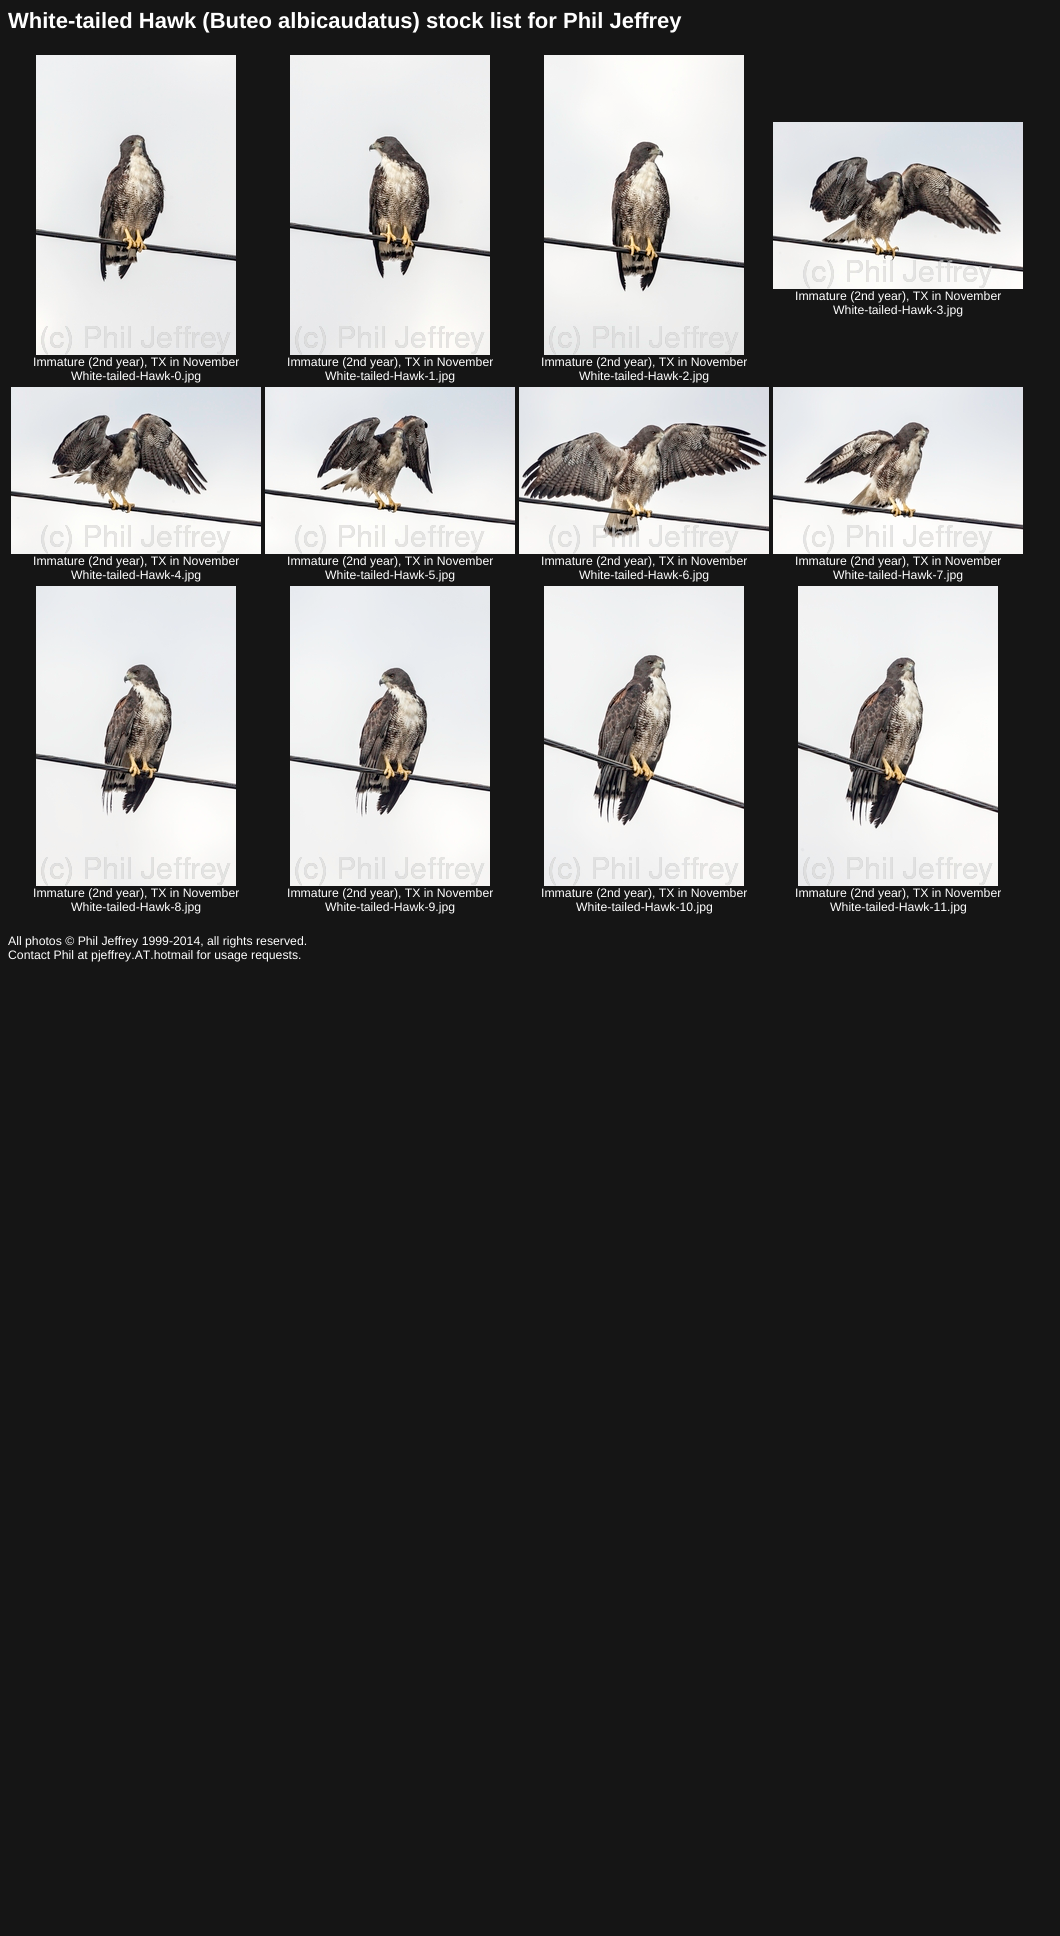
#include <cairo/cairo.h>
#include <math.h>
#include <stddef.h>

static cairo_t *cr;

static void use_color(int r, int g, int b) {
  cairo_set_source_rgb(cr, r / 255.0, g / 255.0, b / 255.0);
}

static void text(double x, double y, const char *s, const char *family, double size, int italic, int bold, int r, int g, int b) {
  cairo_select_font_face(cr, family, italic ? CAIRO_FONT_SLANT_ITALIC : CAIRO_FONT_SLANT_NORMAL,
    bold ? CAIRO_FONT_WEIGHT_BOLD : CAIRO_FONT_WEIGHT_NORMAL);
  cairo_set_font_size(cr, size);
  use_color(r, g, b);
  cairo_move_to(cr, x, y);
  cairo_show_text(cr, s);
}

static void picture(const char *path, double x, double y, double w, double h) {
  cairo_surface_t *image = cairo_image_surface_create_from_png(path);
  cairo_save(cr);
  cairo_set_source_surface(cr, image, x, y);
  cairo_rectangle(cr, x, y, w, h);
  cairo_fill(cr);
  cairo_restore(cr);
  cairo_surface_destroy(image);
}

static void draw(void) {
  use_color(21, 21, 21);
  cairo_paint(cr);
  picture("img_01.png", 773, 122, 250, 167);
  picture("img_02.png", 36, 55, 200, 300);
  picture("img_03.png", 290, 55, 200, 300);
  picture("img_04.png", 544, 55, 200, 300);
  picture("img_05.png", 11, 387, 250, 167);
  picture("img_06.png", 265, 387, 250, 167);
  picture("img_07.png", 519, 387, 250, 167);
  picture("img_08.png", 773, 387, 250, 167);
  picture("img_09.png", 36, 586, 200, 300);
  picture("img_10.png", 290, 586, 200, 300);
  picture("img_11.png", 544, 586, 200, 300);
  picture("img_12.png", 798, 586, 200, 300);
  text(8, 28, "White-tailed Hawk (Buteo albicaudatus) stock list for Phil Jeffrey", "Liberation Sans", 22, 0, 1, 255, 255, 255);
  text(795, 300, "Immature (2nd year), TX in November", "Liberation Sans", 12.25, 0, 0, 255, 255, 255);
  text(833, 314, "White-tailed-Hawk-3.jpg", "Liberation Sans", 12.25, 0, 0, 255, 255, 255);
  text(33, 366, "Immature (2nd year), TX in November", "Liberation Sans", 12.25, 0, 0, 255, 255, 255);
  text(71, 380, "White-tailed-Hawk-0.jpg", "Liberation Sans", 12.25, 0, 0, 255, 255, 255);
  text(287, 366, "Immature (2nd year), TX in November", "Liberation Sans", 12.25, 0, 0, 255, 255, 255);
  text(325, 380, "White-tailed-Hawk-1.jpg", "Liberation Sans", 12.25, 0, 0, 255, 255, 255);
  text(541, 366, "Immature (2nd year), TX in November", "Liberation Sans", 12.25, 0, 0, 255, 255, 255);
  text(579, 380, "White-tailed-Hawk-2.jpg", "Liberation Sans", 12.25, 0, 0, 255, 255, 255);
  text(33, 565, "Immature (2nd year), TX in November", "Liberation Sans", 12.25, 0, 0, 255, 255, 255);
  text(71, 579, "White-tailed-Hawk-4.jpg", "Liberation Sans", 12.25, 0, 0, 255, 255, 255);
  text(287, 565, "Immature (2nd year), TX in November", "Liberation Sans", 12.25, 0, 0, 255, 255, 255);
  text(325, 579, "White-tailed-Hawk-5.jpg", "Liberation Sans", 12.25, 0, 0, 255, 255, 255);
  text(541, 565, "Immature (2nd year), TX in November", "Liberation Sans", 12.25, 0, 0, 255, 255, 255);
  text(579, 579, "White-tailed-Hawk-6.jpg", "Liberation Sans", 12.25, 0, 0, 255, 255, 255);
  text(795, 565, "Immature (2nd year), TX in November", "Liberation Sans", 12.25, 0, 0, 255, 255, 255);
  text(833, 579, "White-tailed-Hawk-7.jpg", "Liberation Sans", 12.25, 0, 0, 255, 255, 255);
  text(33, 897, "Immature (2nd year), TX in November", "Liberation Sans", 12.25, 0, 0, 255, 255, 255);
  text(71, 911, "White-tailed-Hawk-8.jpg", "Liberation Sans", 12.25, 0, 0, 255, 255, 255);
  text(287, 897, "Immature (2nd year), TX in November", "Liberation Sans", 12.25, 0, 0, 255, 255, 255);
  text(325, 911, "White-tailed-Hawk-9.jpg", "Liberation Sans", 12.25, 0, 0, 255, 255, 255);
  text(541, 897, "Immature (2nd year), TX in November", "Liberation Sans", 12.25, 0, 0, 255, 255, 255);
  text(576, 911, "White-tailed-Hawk-10.jpg", "Liberation Sans", 12.25, 0, 0, 255, 255, 255);
  text(795, 897, "Immature (2nd year), TX in November", "Liberation Sans", 12.25, 0, 0, 255, 255, 255);
  text(830, 911, "White-tailed-Hawk-11.jpg", "Liberation Sans", 12.25, 0, 0, 255, 255, 255);
  text(8, 945, "All photos © Phil Jeffrey 1999-2014, all rights reserved.", "Liberation Sans", 12.25, 0, 0, 255, 255, 255);
  text(8, 959, "Contact Phil at pjeffrey.AT.hotmail for usage requests.", "Liberation Sans", 12.25, 0, 0, 255, 255, 255);
}

int main(void) {
  cairo_surface_t *surface = cairo_image_surface_create(CAIRO_FORMAT_RGB24, 1060, 1936);
  cr = cairo_create(surface);
  cairo_font_options_t *options = cairo_font_options_create();
  cairo_font_options_set_hint_metrics(options, CAIRO_HINT_METRICS_OFF);
  cairo_font_options_set_hint_style(options, CAIRO_HINT_STYLE_NONE);
  cairo_set_font_options(cr, options);
  cairo_set_miter_limit(cr, 4);
  draw();
  cairo_surface_write_to_png(surface, "out.png");
  cairo_font_options_destroy(options);
  cairo_destroy(cr);
  cairo_surface_destroy(surface);
  return 0;
}
